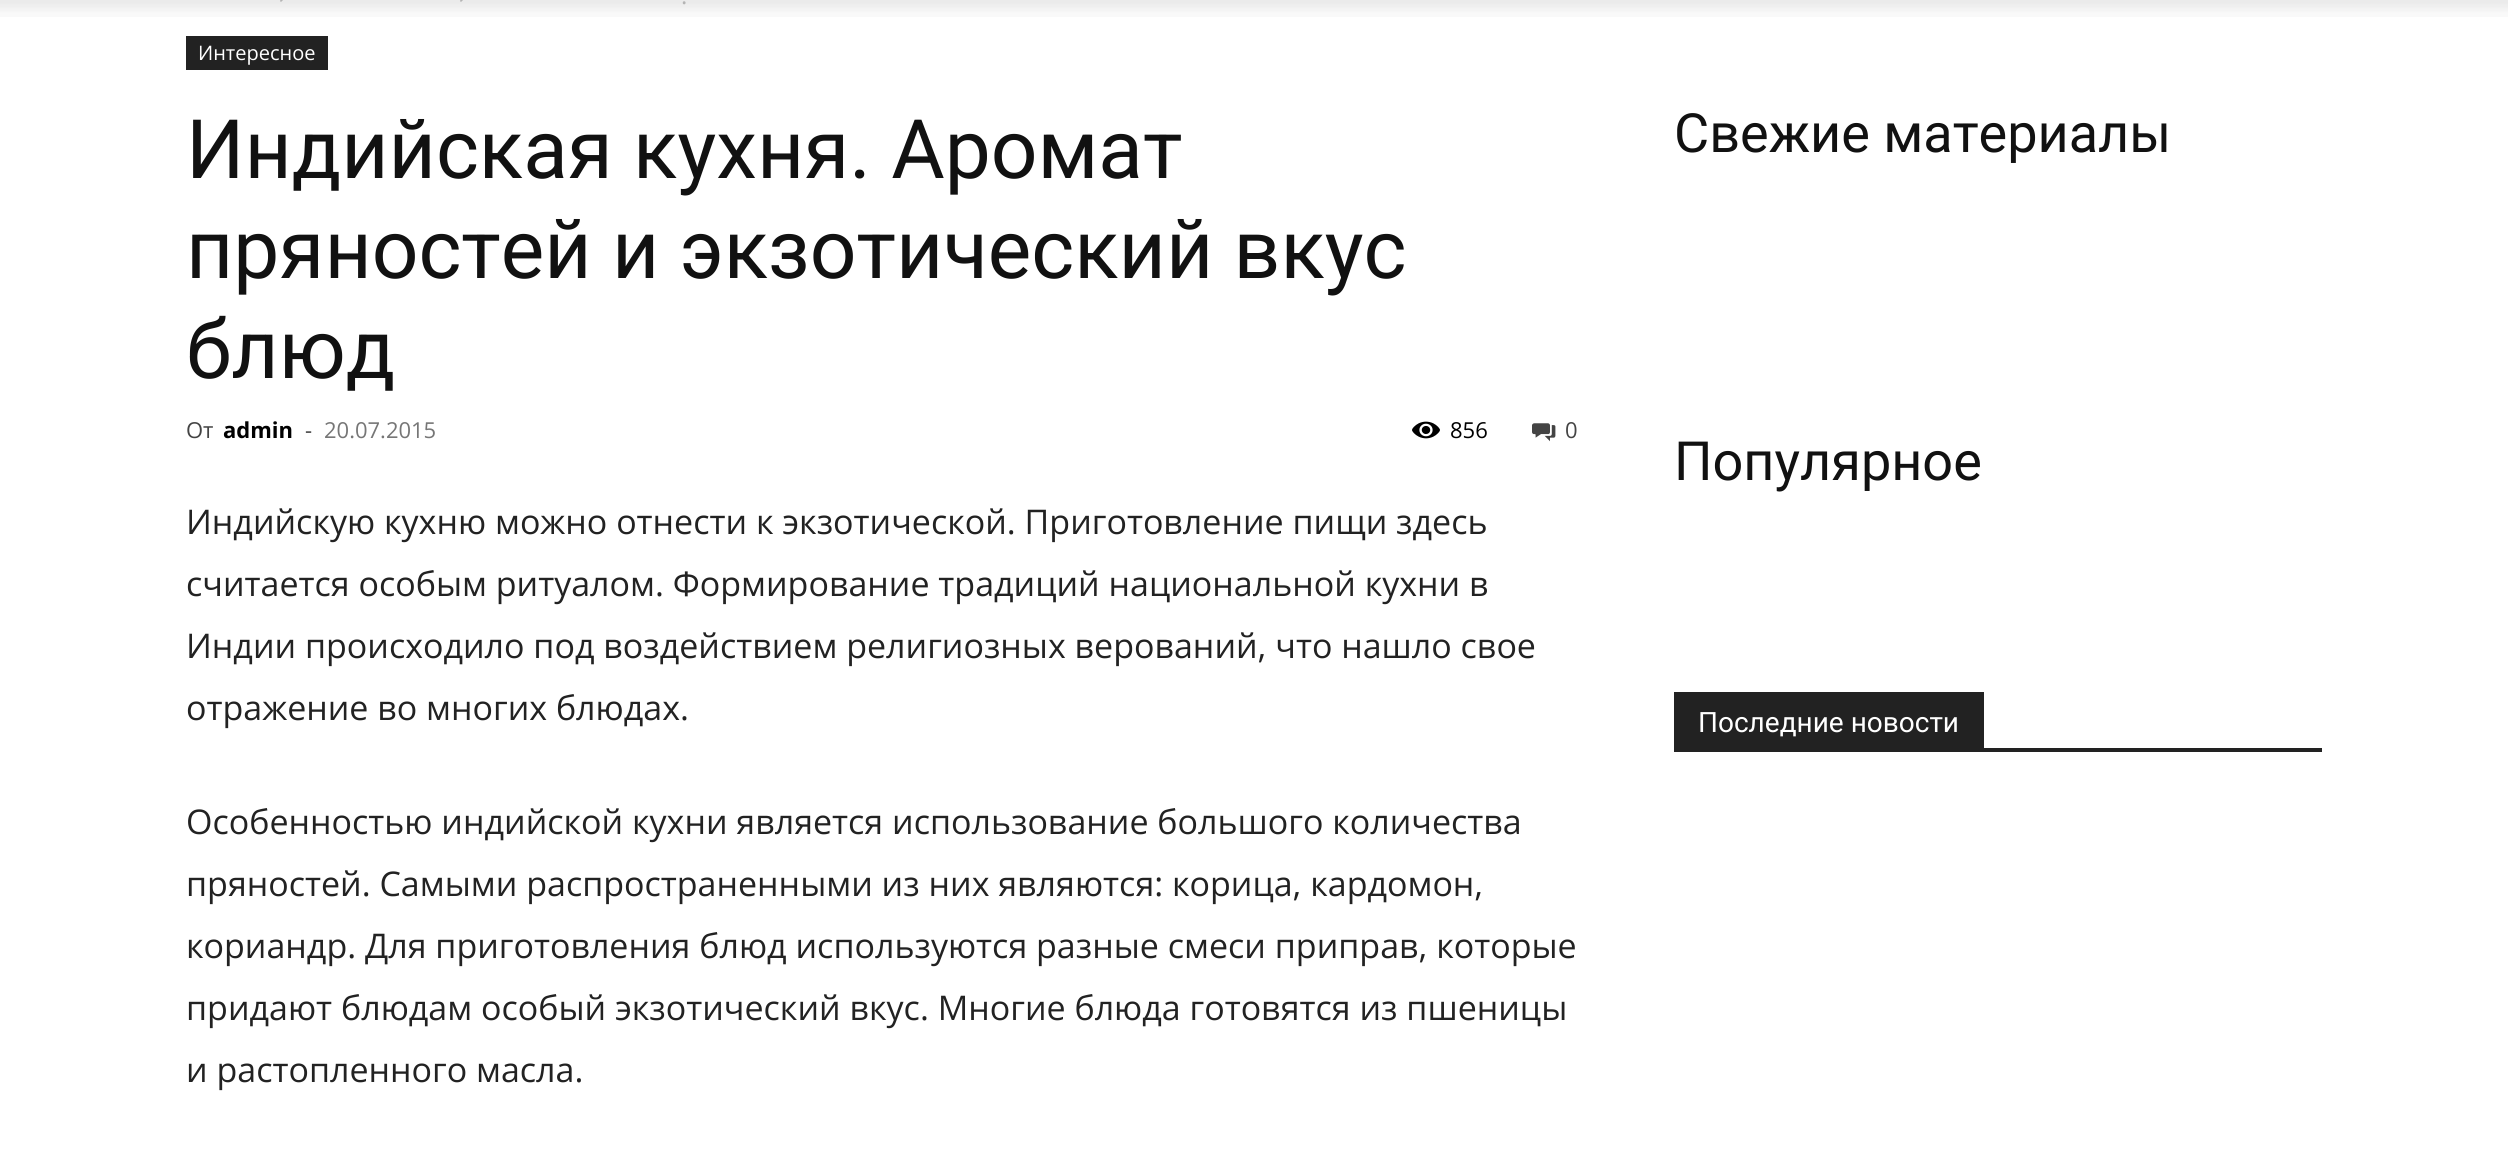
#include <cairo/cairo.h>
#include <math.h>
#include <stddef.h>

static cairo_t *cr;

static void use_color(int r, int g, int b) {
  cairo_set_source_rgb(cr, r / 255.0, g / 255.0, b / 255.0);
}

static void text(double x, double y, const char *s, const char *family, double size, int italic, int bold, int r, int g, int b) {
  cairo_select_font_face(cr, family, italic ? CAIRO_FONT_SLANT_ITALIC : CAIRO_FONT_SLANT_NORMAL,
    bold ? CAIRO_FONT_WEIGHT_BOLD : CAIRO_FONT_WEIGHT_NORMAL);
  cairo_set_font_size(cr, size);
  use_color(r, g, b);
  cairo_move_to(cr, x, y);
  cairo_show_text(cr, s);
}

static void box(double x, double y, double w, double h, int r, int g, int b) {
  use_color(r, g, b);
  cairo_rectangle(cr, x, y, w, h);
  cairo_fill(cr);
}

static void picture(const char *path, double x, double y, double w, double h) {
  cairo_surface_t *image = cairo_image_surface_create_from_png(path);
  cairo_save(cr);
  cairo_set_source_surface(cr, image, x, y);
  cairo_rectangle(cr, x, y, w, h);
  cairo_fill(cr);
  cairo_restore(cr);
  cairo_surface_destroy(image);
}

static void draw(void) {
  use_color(255, 255, 255);
  cairo_paint(cr);
  picture("img_02.png", 280, 0, 3, 2);
  picture("img_02.png", 460, 0, 3, 2);
  box(186, 36, 142, 34, 34, 34, 34);
  picture("img_03.png", 1412, 421, 28, 18);
  picture("img_04.png", 1532, 423, 24, 19);
  box(1674, 748, 648, 4, 34, 34, 34);
  box(1674, 692, 310, 56, 34, 34, 34);
  text(681, 4, ".", "Open Sans", 24, 0, 0, 195, 195, 195);
  picture("img_01.png", 0, 0, 2508, 17);
  text(198, 60, "Интересное", "Open Sans", 20, 0, 0, 255, 255, 255);
  text(186, 178, "Индийская кухня. Аромат", "Roboto", 82, 0, 0, 17, 17, 17);
  text(186, 278, "пряностей и экзотический вкус", "Roboto", 82, 0, 0, 17, 17, 17);
  text(186, 378, "блюд", "Roboto", 82, 0, 0, 17, 17, 17);
  text(186, 438, "От", "Open Sans", 22, 0, 0, 68, 68, 68);
  text(223, 438, "admin", "Open Sans", 22, 0, 1, 0, 0, 0);
  text(305, 438, "-", "Open Sans", 22, 0, 0, 68, 68, 68);
  text(324, 438, "20.07.2015", "Open Sans", 22, 0, 0, 118, 118, 118);
  text(1450, 438, "856", "Open Sans", 22, 0, 0, 0, 0, 0);
  text(1565, 438, "0", "Open Sans", 22, 0, 0, 68, 68, 68);
  text(186, 534, "Индийскую кухню можно отнести к экзотической. Приготовление пищи здесь", "Open Sans", 34, 0, 0, 34, 34, 34);
  text(186, 596, "считается особым ритуалом. Формирование традиций национальной кухни в", "Open Sans", 34, 0, 0, 34, 34, 34);
  text(186, 658, "Индии происходило под воздействием религиозных верований, что нашло свое", "Open Sans", 34, 0, 0, 34, 34, 34);
  text(186, 720, "отражение во многих блюдах.", "Open Sans", 34, 0, 0, 34, 34, 34);
  text(186, 834, "Особенностью индийской кухни является использование большого количества", "Open Sans", 34, 0, 0, 34, 34, 34);
  text(186, 896, "пряностей. Самыми распространенными из них являются: корица, кардомон,", "Open Sans", 34, 0, 0, 34, 34, 34);
  text(186, 958, "кориандр. Для приготовления блюд используются разные смеси приправ, которые", "Open Sans", 34, 0, 0, 34, 34, 34);
  text(186, 1020, "придают блюдам особый экзотический вкус. Многие блюда готовятся из пшеницы", "Open Sans", 34, 0, 0, 34, 34, 34);
  text(186, 1082, "и растопленного масла.", "Open Sans", 34, 0, 0, 34, 34, 34);
  text(1674, 152, "Свежие материалы", "Roboto", 54, 0, 0, 17, 17, 17);
  text(1674, 480, "Популярное", "Roboto", 54, 0, 0, 17, 17, 17);
  text(1698, 732, "Последние новости", "Roboto", 28, 0, 0, 255, 255, 255);
}

int main(void) {
  cairo_surface_t *surface = cairo_image_surface_create(CAIRO_FORMAT_RGB24, 2508, 1156);
  cr = cairo_create(surface);
  cairo_font_options_t *options = cairo_font_options_create();
  cairo_font_options_set_hint_metrics(options, CAIRO_HINT_METRICS_OFF);
  cairo_font_options_set_hint_style(options, CAIRO_HINT_STYLE_NONE);
  cairo_set_font_options(cr, options);
  cairo_set_miter_limit(cr, 4);
  draw();
  cairo_surface_write_to_png(surface, "out.png");
  cairo_font_options_destroy(options);
  cairo_destroy(cr);
  cairo_surface_destroy(surface);
  return 0;
}
